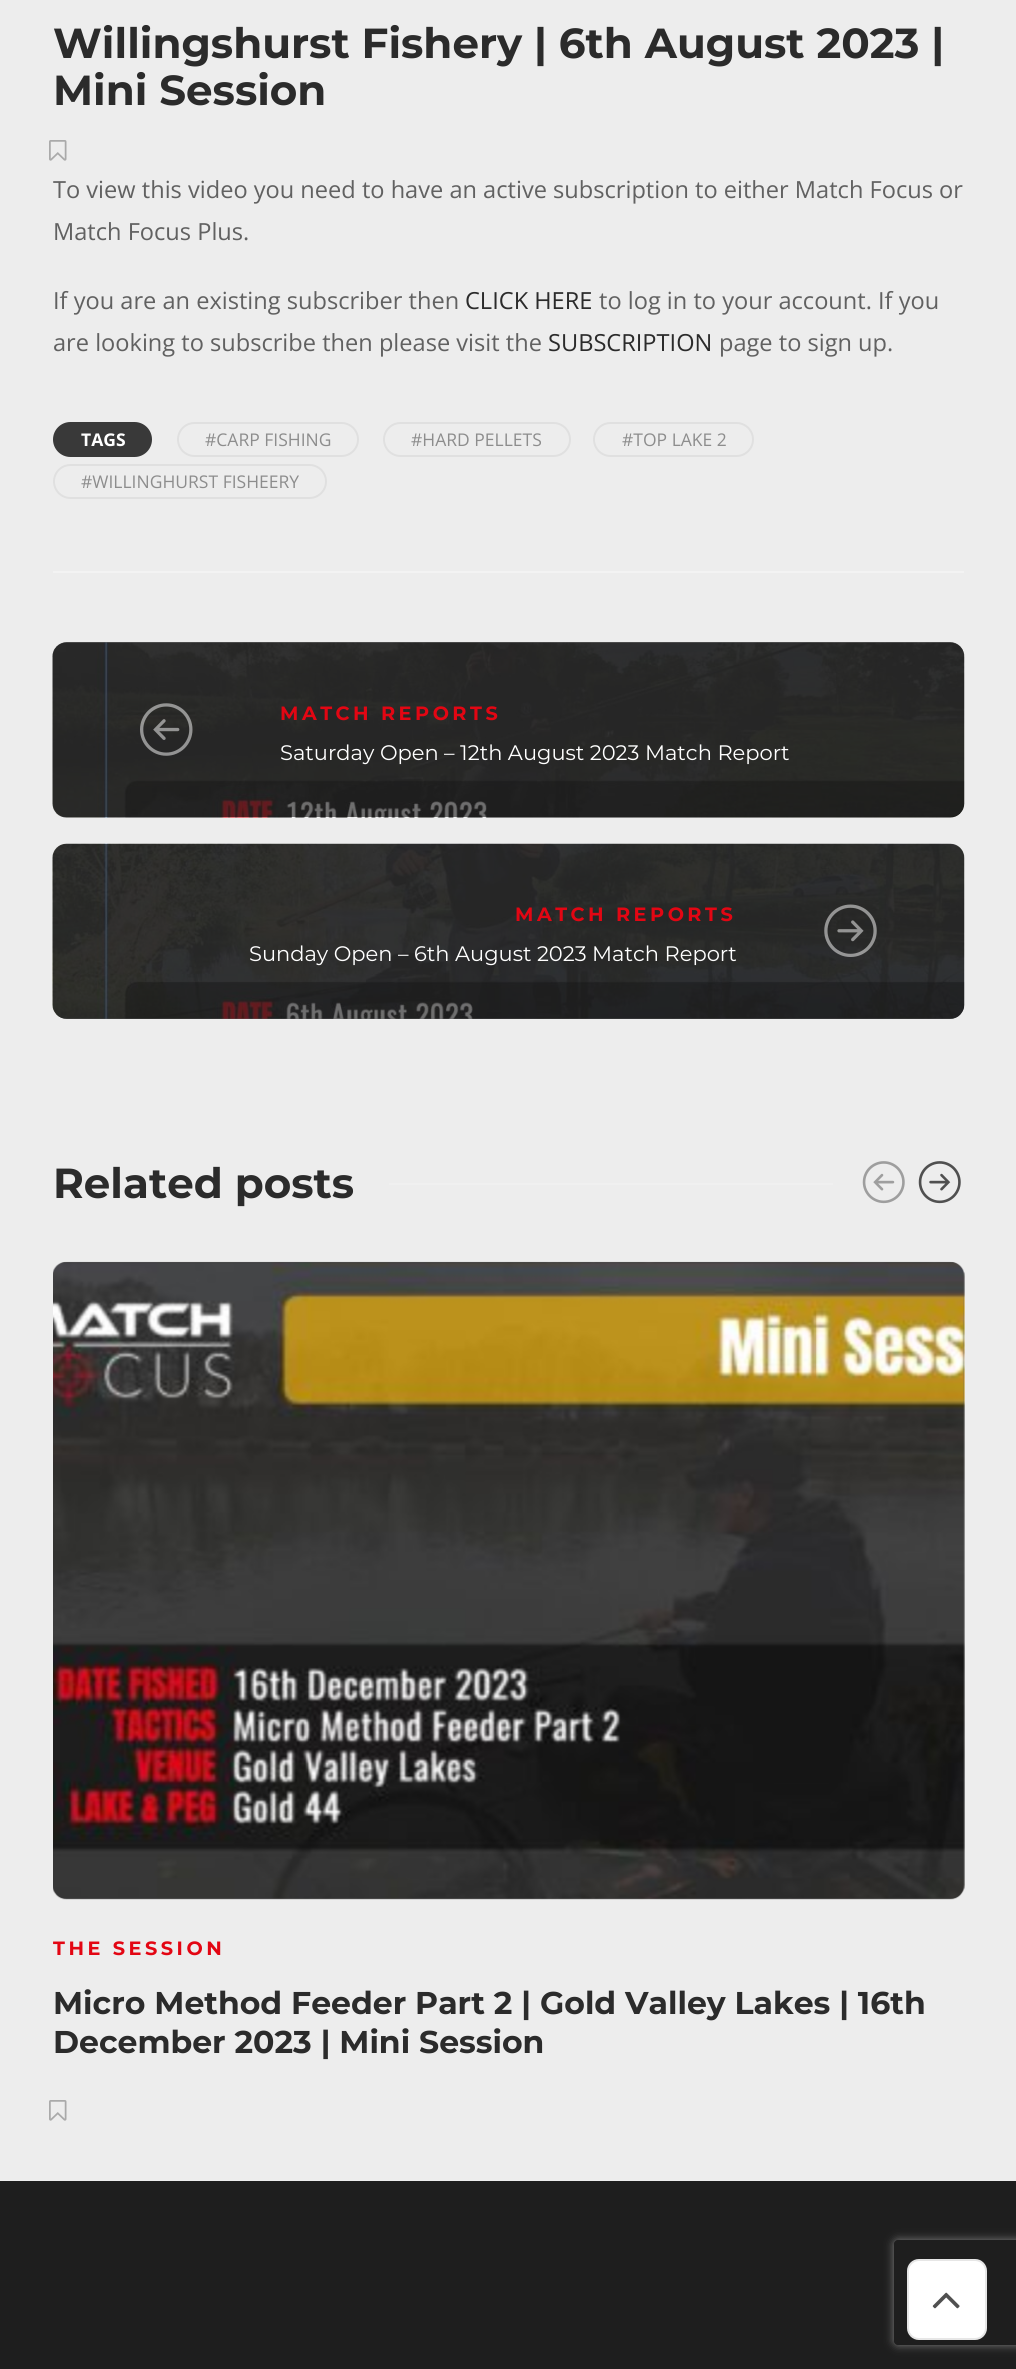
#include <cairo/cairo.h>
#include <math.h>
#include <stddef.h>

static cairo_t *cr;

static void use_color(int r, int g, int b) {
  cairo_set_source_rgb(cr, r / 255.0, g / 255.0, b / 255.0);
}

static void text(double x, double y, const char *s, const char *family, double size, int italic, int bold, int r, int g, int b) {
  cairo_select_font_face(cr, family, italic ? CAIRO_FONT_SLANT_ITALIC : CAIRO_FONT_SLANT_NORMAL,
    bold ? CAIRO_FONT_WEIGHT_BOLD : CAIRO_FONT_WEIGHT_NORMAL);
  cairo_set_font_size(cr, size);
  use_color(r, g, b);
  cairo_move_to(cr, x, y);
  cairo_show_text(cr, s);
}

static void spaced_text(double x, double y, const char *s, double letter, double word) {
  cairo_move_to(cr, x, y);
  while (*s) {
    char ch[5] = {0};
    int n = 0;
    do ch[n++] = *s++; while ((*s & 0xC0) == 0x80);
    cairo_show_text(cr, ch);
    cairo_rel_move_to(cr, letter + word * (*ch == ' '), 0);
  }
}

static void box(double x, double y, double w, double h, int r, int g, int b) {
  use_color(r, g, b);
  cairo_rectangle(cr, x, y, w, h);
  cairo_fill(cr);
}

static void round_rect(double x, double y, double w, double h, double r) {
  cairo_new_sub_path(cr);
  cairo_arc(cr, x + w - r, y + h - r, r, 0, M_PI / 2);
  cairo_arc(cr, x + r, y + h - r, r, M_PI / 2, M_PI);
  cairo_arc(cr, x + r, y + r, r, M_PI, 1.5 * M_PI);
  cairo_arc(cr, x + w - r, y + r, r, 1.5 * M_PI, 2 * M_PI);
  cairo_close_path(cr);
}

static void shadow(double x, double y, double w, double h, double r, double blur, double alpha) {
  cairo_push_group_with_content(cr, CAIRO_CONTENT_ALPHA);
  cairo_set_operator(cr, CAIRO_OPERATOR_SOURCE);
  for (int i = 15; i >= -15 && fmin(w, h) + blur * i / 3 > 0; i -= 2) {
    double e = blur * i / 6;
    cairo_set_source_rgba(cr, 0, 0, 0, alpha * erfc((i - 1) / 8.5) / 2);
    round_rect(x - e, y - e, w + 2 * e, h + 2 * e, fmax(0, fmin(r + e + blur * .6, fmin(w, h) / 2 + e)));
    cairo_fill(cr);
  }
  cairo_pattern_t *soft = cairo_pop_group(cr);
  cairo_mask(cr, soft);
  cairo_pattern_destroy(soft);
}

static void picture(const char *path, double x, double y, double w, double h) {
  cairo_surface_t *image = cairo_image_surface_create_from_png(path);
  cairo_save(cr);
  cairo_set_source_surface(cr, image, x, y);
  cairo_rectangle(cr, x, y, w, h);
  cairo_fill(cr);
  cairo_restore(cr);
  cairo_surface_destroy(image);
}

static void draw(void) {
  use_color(237, 237, 237);
  cairo_paint(cr);
  picture("img_01.png", 49, 140, 18, 21);
  use_color(57, 57, 57);
  round_rect(54, 423, 97, 33, 16.5);
  cairo_fill_preserve(cr);
  cairo_stroke(cr);
  round_rect(178, 423, 180, 33, 16.5);
  use_color(224, 224, 224);
  cairo_stroke(cr);
  round_rect(384, 423, 186, 33, 16.5);
  cairo_stroke(cr);
  round_rect(594, 423, 159, 33, 16.5);
  cairo_stroke(cr);
  round_rect(54, 465, 272, 33, 16.5);
  cairo_stroke(cr);
  box(53, 571, 911, 2, 243, 243, 243);
  picture("img_02.png", 52, 642, 913, 176);
  cairo_set_source_rgba(cr, 0.141, 0.141, 0.141, 0.65);
  round_rect(53, 642, 911, 175, 14);
  cairo_fill(cr);
  picture("img_03.png", 140, 703, 53, 53);
  picture("img_04.png", 52, 843, 913, 176);
  round_rect(53, 844, 911, 175, 14);
  cairo_fill(cr);
  picture("img_05.png", 824, 904, 53, 53);
  box(389, 1183, 444, 2, 240, 240, 240);
  picture("img_06.png", 862, 1161, 43, 43);
  picture("img_07.png", 918, 1161, 43, 43);
  use_color(107, 107, 107);
  round_rect(53, 1262, 911, 637, 14);
  cairo_fill(cr);
  picture("img_08.png", 53, 1261, 912, 639);
  picture("img_01.png", 49, 2100, 18, 21);
  box(0, 2181, 1016, 188, 30, 30, 30);
  cairo_save(cr);
  cairo_set_fill_rule(cr, CAIRO_FILL_RULE_EVEN_ODD);
  cairo_new_path(cr);
  cairo_move_to(cr, 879, 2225);
  cairo_line_to(cr, 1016, 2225);
  cairo_line_to(cr, 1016, 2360);
  cairo_line_to(cr, 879, 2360);
  cairo_close_path(cr);
  cairo_move_to(cr, 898, 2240);
  cairo_line_to(cr, 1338, 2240);
  cairo_curve_to(cr, 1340, 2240, 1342, 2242, 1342, 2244);
  cairo_line_to(cr, 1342, 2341);
  cairo_curve_to(cr, 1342, 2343, 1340, 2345, 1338, 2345);
  cairo_line_to(cr, 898, 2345);
  cairo_curve_to(cr, 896, 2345, 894, 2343, 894, 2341);
  cairo_line_to(cr, 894, 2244);
  cairo_curve_to(cr, 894, 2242, 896, 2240, 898, 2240);
  cairo_close_path(cr);
  cairo_clip(cr);
  use_color(128, 128, 128);
  shadow(894, 2240, 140, 105, 4, 4.5, 1);
  cairo_restore(cr);
  use_color(255, 255, 255);
  round_rect(907, 2259, 80, 81, 12);
  cairo_fill(cr);
  round_rect(908, 2260, 78, 79, 11);
  cairo_set_source_rgba(cr, 0, 0, 0, 0.1);
  cairo_stroke(cr);
  picture("img_09.png", 932, 2292, 28, 17);
  text(53, 58, "Willingshurst Fishery | 6th August 2023 |", "Montserrat", 42, 0, 1, 43, 43, 43);
  text(53, 105, "Mini Session", "Montserrat", 42, 0, 1, 43, 43, 43);
  text(53, 198, "To view this video you need to have an active subscription to either Match Focus or", "Open Sans", 23.6, 0, 0, 97, 97, 97);
  text(53, 240, "Match Focus Plus.", "Open Sans", 23.6, 0, 0, 97, 97, 97);
  text(53, 309, "If you are an existing subscriber then", "Open Sans", 23.6, 0, 0, 97, 97, 97);
  text(465, 309, "CLICK HERE", "Open Sans", 23.6, 0, 0, 43, 43, 43);
  text(599, 309, "to log in to your account. If you", "Open Sans", 23.6, 0, 0, 97, 97, 97);
  text(53, 351, "are looking to subscribe then please visit the", "Open Sans", 23.6, 0, 0, 97, 97, 97);
  text(548, 351, "SUBSCRIPTION", "Open Sans", 23.6, 0, 0, 43, 43, 43);
  text(719, 351, "page to sign up.", "Open Sans", 23.6, 0, 0, 97, 97, 97);
  text(81, 446, "TAGS", "Open Sans", 17.5, 0, 1, 255, 255, 255);
  text(205, 446, "#CARP FISHING", "Open Sans", 17.5, 0, 0, 141, 141, 141);
  text(411, 446, "#HARD PELLETS", "Open Sans", 17.5, 0, 0, 141, 141, 141);
  text(622, 446, "#TOP LAKE 2", "Open Sans", 17.5, 0, 0, 141, 141, 141);
  text(81, 488, "#WILLINGHURST FISHEERY", "Open Sans", 17.5, 0, 0, 141, 141, 141);
  cairo_select_font_face(cr, "Montserrat", CAIRO_FONT_SLANT_NORMAL, CAIRO_FONT_WEIGHT_BOLD);
  cairo_set_font_size(cr, 19.25);
  use_color(227, 6, 19);
  spaced_text(280, 720, "MATCH REPORTS", 3.5, 0);
  text(280, 760, "Saturday Open – 12th August 2023 Match Report", "Montserrat", 21, 0, 0, 255, 255, 255);
  cairo_select_font_face(cr, "Montserrat", CAIRO_FONT_SLANT_NORMAL, CAIRO_FONT_WEIGHT_BOLD);
  cairo_set_font_size(cr, 19.25);
  use_color(227, 6, 19);
  spaced_text(515, 921, "MATCH REPORTS", 3.5, 0);
  text(249, 961, "Sunday Open – 6th August 2023 Match Report", "Montserrat", 21, 0, 0, 255, 255, 255);
  text(53, 1198, "Related posts", "Montserrat", 42, 0, 1, 43, 43, 43);
  cairo_set_font_size(cr, 19.25);
  use_color(227, 6, 19);
  spaced_text(53, 1955, "THE SESSION", 3.5, 0);
  text(53, 2014, "Micro Method Feeder Part 2 | Gold Valley Lakes | 16th", "Montserrat", 31.5, 0, 1, 43, 43, 43);
  text(53, 2053, "December 2023 | Mini Session", "Montserrat", 31.5, 0, 1, 43, 43, 43);
}

int main(void) {
  cairo_surface_t *surface = cairo_image_surface_create(CAIRO_FORMAT_RGB24, 1016, 2369);
  cr = cairo_create(surface);
  cairo_font_options_t *options = cairo_font_options_create();
  cairo_font_options_set_hint_metrics(options, CAIRO_HINT_METRICS_OFF);
  cairo_font_options_set_hint_style(options, CAIRO_HINT_STYLE_NONE);
  cairo_set_font_options(cr, options);
  cairo_set_miter_limit(cr, 4);
  draw();
  cairo_surface_write_to_png(surface, "out.png");
  cairo_font_options_destroy(options);
  cairo_destroy(cr);
  cairo_surface_destroy(surface);
  return 0;
}
